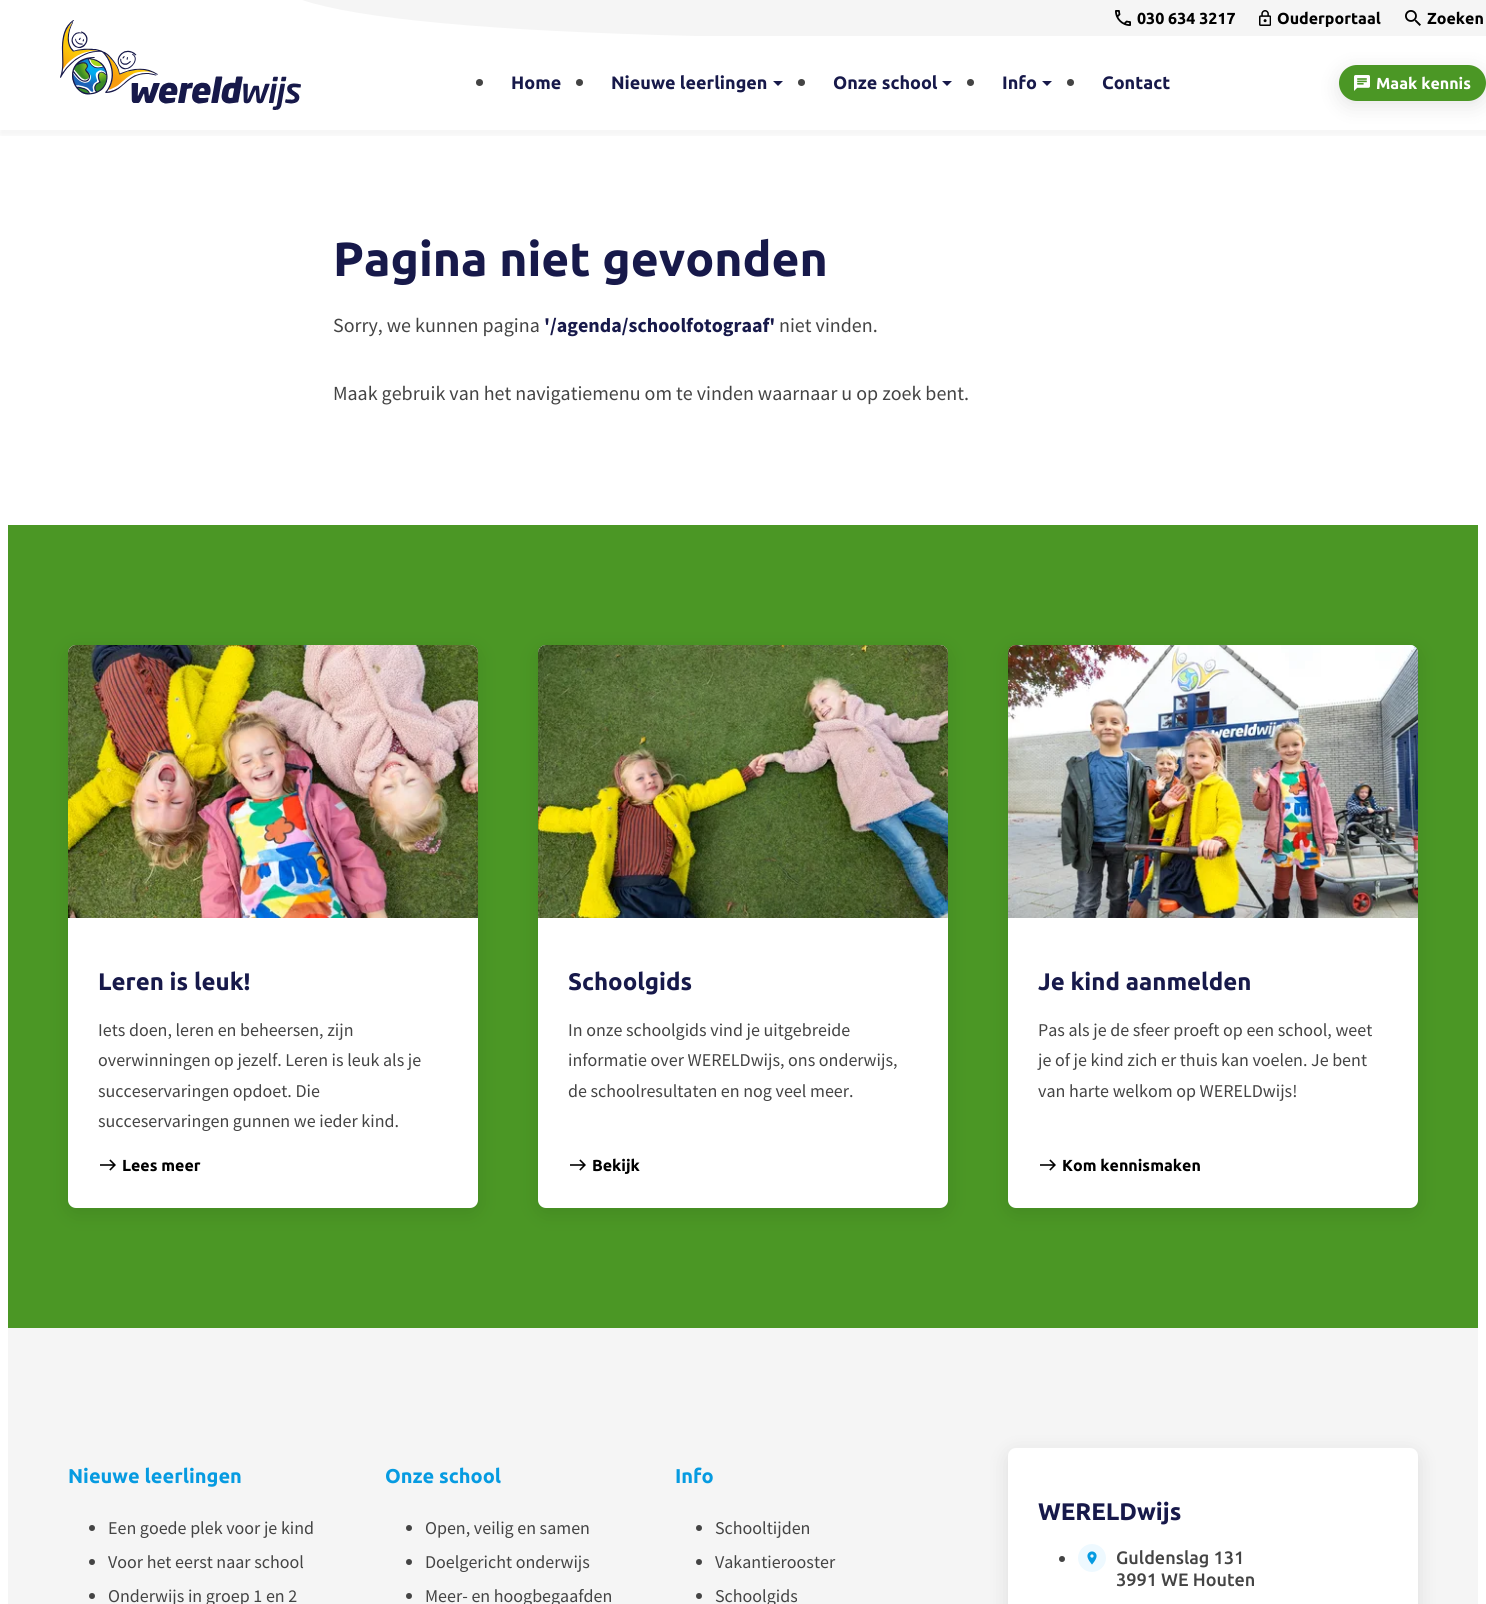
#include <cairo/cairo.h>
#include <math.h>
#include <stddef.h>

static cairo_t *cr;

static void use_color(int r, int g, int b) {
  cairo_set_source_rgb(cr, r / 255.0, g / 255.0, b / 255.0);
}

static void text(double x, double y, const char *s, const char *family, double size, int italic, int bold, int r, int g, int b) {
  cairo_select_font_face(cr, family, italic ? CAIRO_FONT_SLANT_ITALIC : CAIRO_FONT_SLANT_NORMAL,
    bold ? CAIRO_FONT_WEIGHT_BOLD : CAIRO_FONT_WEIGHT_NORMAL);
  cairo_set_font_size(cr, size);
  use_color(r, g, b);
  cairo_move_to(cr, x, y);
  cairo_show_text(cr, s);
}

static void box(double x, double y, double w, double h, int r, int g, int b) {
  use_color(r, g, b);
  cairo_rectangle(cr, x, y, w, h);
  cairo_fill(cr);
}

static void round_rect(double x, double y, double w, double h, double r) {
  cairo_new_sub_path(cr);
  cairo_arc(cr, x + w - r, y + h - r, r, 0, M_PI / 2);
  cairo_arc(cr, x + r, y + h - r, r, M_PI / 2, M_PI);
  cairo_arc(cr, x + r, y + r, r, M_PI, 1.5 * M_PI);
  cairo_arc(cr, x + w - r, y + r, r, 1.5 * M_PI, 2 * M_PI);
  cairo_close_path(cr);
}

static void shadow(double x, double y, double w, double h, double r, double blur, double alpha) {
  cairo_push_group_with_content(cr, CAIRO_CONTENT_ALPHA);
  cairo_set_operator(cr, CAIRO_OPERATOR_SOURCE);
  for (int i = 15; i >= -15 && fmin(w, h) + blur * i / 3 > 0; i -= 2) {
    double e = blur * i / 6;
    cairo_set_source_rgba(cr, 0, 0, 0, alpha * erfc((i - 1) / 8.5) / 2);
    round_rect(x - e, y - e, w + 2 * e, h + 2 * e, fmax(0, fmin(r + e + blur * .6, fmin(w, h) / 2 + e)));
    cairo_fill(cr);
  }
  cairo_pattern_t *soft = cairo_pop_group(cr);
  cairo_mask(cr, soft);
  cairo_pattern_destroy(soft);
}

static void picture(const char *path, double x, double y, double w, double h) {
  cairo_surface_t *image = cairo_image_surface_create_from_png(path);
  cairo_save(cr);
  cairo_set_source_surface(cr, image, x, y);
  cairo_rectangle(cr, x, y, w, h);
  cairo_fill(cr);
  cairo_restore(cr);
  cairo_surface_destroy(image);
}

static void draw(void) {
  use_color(255, 255, 255);
  cairo_paint(cr);
  cairo_save(cr);
  cairo_rectangle(cr, 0, 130, 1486, 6);
  cairo_clip(cr);
  use_color(0, 0, 0);
  shadow(0, 5, 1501, 130, 0, 5, 0.05);
  cairo_restore(cr);
  picture("img_01.png", 60, 20, 241, 90);
  use_color(245, 245, 245);
  cairo_new_path(cr);
  cairo_move_to(cr, 302, 0);
  cairo_line_to(cr, 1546, 0);
  cairo_line_to(cr, 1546, 36);
  cairo_line_to(cr, 694, 36);
  cairo_curve_to(cr, 490, 31, 359, 19, 302, 0);
  cairo_close_path(cr);
  cairo_fill(cr);
  picture("img_02.png", 1115, 10, 16, 16);
  picture("img_03.png", 1259, 10, 12, 16);
  picture("img_04.png", 1405, 10, 16, 16);
  use_color(68, 68, 68);
  cairo_arc(cr, 479.5, 82.5, 3.5, 0, 2 * M_PI);
  cairo_fill(cr);
  cairo_arc(cr, 579.5, 82.5, 3.5, 0, 2 * M_PI);
  cairo_fill(cr);
  use_color(23, 25, 74);
  cairo_new_path(cr);
  cairo_move_to(cr, 773, 81);
  cairo_line_to(cr, 778, 86);
  cairo_line_to(cr, 783, 81);
  cairo_close_path(cr);
  cairo_fill(cr);
  use_color(68, 68, 68);
  cairo_arc(cr, 801.5, 82.5, 3.5, 0, 2 * M_PI);
  cairo_fill(cr);
  use_color(23, 25, 74);
  cairo_new_path(cr);
  cairo_move_to(cr, 942, 81);
  cairo_line_to(cr, 947, 86);
  cairo_line_to(cr, 952, 81);
  cairo_close_path(cr);
  cairo_fill(cr);
  use_color(68, 68, 68);
  cairo_arc(cr, 970.5, 82.5, 3.5, 0, 2 * M_PI);
  cairo_fill(cr);
  use_color(23, 25, 74);
  cairo_new_path(cr);
  cairo_move_to(cr, 1042, 81);
  cairo_line_to(cr, 1047, 86);
  cairo_line_to(cr, 1052, 81);
  cairo_close_path(cr);
  cairo_fill(cr);
  use_color(68, 68, 68);
  cairo_arc(cr, 1070.5, 82.5, 3.5, 0, 2 * M_PI);
  cairo_fill(cr);
  use_color(0, 0, 0);
  shadow(1339, 70, 147, 36, 18, 10, 0.1);
  use_color(75, 151, 37);
  round_rect(1339, 65, 147, 36, 18);
  cairo_fill(cr);
  picture("img_05.png", 1354, 75, 16, 16);
  box(8, 525, 1470, 803, 75, 151, 37);
  use_color(0, 0, 0);
  shadow(68, 650, 410, 563, 8, 10, 0.1);
  use_color(255, 255, 255);
  round_rect(68, 645, 410, 563, 8);
  cairo_fill(cr);
  picture("img_06.png", 68, 645, 410, 273);
  picture("img_07.png", 100, 1159, 16, 12);
  use_color(0, 0, 0);
  shadow(538, 650, 410, 563, 8, 10, 0.1);
  use_color(255, 255, 255);
  round_rect(538, 645, 410, 563, 8);
  cairo_fill(cr);
  picture("img_08.png", 538, 645, 410, 273);
  picture("img_07.png", 570, 1159, 16, 12);
  use_color(0, 0, 0);
  shadow(1008, 650, 410, 563, 8, 10, 0.1);
  use_color(255, 255, 255);
  round_rect(1008, 645, 410, 563, 8);
  cairo_fill(cr);
  picture("img_09.png", 1008, 645, 410, 273);
  picture("img_07.png", 1040, 1159, 16, 12);
  box(8, 1328, 1470, 276, 245, 245, 245);
  use_color(68, 68, 68);
  cairo_arc(cr, 92, 1528, 3, 0, 2 * M_PI);
  cairo_fill(cr);
  cairo_arc(cr, 92, 1562, 3, 0, 2 * M_PI);
  cairo_fill(cr);
  cairo_arc(cr, 92, 1596, 3, 0, 2 * M_PI);
  cairo_fill(cr);
  cairo_arc(cr, 409, 1528, 3, 0, 2 * M_PI);
  cairo_fill(cr);
  cairo_arc(cr, 409, 1562, 3, 0, 2 * M_PI);
  cairo_fill(cr);
  cairo_arc(cr, 409, 1596, 3, 0, 2 * M_PI);
  cairo_fill(cr);
  cairo_arc(cr, 699, 1528, 3, 0, 2 * M_PI);
  cairo_fill(cr);
  cairo_arc(cr, 699, 1562, 3, 0, 2 * M_PI);
  cairo_fill(cr);
  cairo_arc(cr, 699, 1596, 3, 0, 2 * M_PI);
  cairo_fill(cr);
  use_color(0, 0, 0);
  shadow(1008, 1453, 410, 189, 8, 10, 0.1);
  use_color(255, 255, 255);
  round_rect(1008, 1448, 410, 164, 8);
  cairo_fill(cr);
  use_color(68, 68, 68);
  cairo_arc(cr, 1062, 1559, 3, 0, 2 * M_PI);
  cairo_fill(cr);
  use_color(238, 249, 255);
  cairo_arc(cr, 1092, 1558, 14, 0, 2 * M_PI);
  cairo_fill(cr);
  picture("img_10.png", 1087, 1551, 10, 14);
  text(1137, 24, "030 634 3217", "Ubuntu", 16, 0, 1, 0, 0, 0);
  text(1277, 24, "Ouderportaal", "Ubuntu", 16, 0, 1, 0, 0, 0);
  text(1427, 24, "Zoeken", "Ubuntu", 16, 0, 1, 0, 0, 0);
  text(511, 89, "Home", "Ubuntu", 18, 0, 1, 23, 25, 74);
  text(611, 89, "Nieuwe leerlingen", "Ubuntu", 18, 0, 1, 23, 25, 74);
  text(833, 89, "Onze school", "Ubuntu", 18, 0, 1, 23, 25, 74);
  text(1002, 89, "Info", "Ubuntu", 18, 0, 1, 23, 25, 74);
  text(1102, 89, "Contact", "Ubuntu", 18, 0, 1, 23, 25, 74);
  text(1376, 89, "Maak kennis", "Ubuntu", 16, 0, 1, 255, 255, 255);
  text(333, 276, "Pagina niet gevonden", "Ubuntu", 48, 0, 1, 23, 25, 74);
  text(333, 332, "Sorry, we kunnen pagina", "Source Sans Pro", 20, 0, 0, 68, 68, 68);
  text(544, 332, "'/agenda/schoolfotograaf'", "Source Sans Pro", 20, 0, 1, 23, 25, 74);
  text(779, 332, "niet vinden.", "Source Sans Pro", 20, 0, 0, 68, 68, 68);
  text(333, 400, "Maak gebruik van het navigatiemenu om te vinden waarnaar u op zoek bent.", "Source Sans Pro", 20, 0, 0, 68, 68, 68);
  text(98, 990, "Leren is leuk!", "Ubuntu", 24, 0, 1, 23, 25, 74);
  text(98, 1036, "Iets doen, leren en beheersen, zijn", "Source Sans Pro", 18, 0, 0, 68, 68, 68);
  text(98, 1066, "overwinningen op jezelf. Leren is leuk als je", "Source Sans Pro", 18, 0, 0, 68, 68, 68);
  text(98, 1097, "succeservaringen opdoet. Die", "Source Sans Pro", 18, 0, 0, 68, 68, 68);
  text(98, 1127, "succeservaringen gunnen we ieder kind.", "Source Sans Pro", 18, 0, 0, 68, 68, 68);
  text(122, 1171, "Lees meer", "Ubuntu", 16, 0, 1, 0, 0, 0);
  text(568, 990, "Schoolgids", "Ubuntu", 24, 0, 1, 23, 25, 74);
  text(568, 1036, "In onze schoolgids vind je uitgebreide", "Source Sans Pro", 18, 0, 0, 68, 68, 68);
  text(568, 1066, "informatie over WERELDwijs, ons onderwijs,", "Source Sans Pro", 18, 0, 0, 68, 68, 68);
  text(568, 1097, "de schoolresultaten en nog veel meer.", "Source Sans Pro", 18, 0, 0, 68, 68, 68);
  text(592, 1171, "Bekijk", "Ubuntu", 16, 0, 1, 0, 0, 0);
  text(1038, 990, "Je kind aanmelden", "Ubuntu", 24, 0, 1, 23, 25, 74);
  text(1038, 1036, "Pas als je de sfeer proeft op een school, weet", "Source Sans Pro", 18, 0, 0, 68, 68, 68);
  text(1038, 1066, "je of je kind zich er thuis kan voelen. Je bent", "Source Sans Pro", 18, 0, 0, 68, 68, 68);
  text(1038, 1097, "van harte welkom op WERELDwijs!", "Source Sans Pro", 18, 0, 0, 68, 68, 68);
  text(1062, 1171, "Kom kennismaken", "Ubuntu", 16, 0, 1, 0, 0, 0);
  text(68, 1483, "Nieuwe leerlingen", "Ubuntu", 20, 0, 1, 6, 155, 225);
  text(108, 1534, "Een goede plek voor je kind", "Source Sans Pro", 18, 0, 0, 68, 68, 68);
  text(108, 1568, "Voor het eerst naar school", "Source Sans Pro", 18, 0, 0, 68, 68, 68);
  text(108, 1602, "Onderwijs in groep 1 en 2", "Source Sans Pro", 18, 0, 0, 68, 68, 68);
  text(385, 1483, "Onze school", "Ubuntu", 20, 0, 1, 6, 155, 225);
  text(425, 1534, "Open, veilig en samen", "Source Sans Pro", 18, 0, 0, 68, 68, 68);
  text(425, 1568, "Doelgericht onderwijs", "Source Sans Pro", 18, 0, 0, 68, 68, 68);
  text(425, 1602, "Meer- en hoogbegaafden", "Source Sans Pro", 18, 0, 0, 68, 68, 68);
  text(675, 1483, "Info", "Ubuntu", 20, 0, 1, 6, 155, 225);
  text(715, 1534, "Schooltijden", "Source Sans Pro", 18, 0, 0, 68, 68, 68);
  text(715, 1568, "Vakantierooster", "Source Sans Pro", 18, 0, 0, 68, 68, 68);
  text(715, 1602, "Schoolgids", "Source Sans Pro", 18, 0, 0, 68, 68, 68);
  text(1038, 1520, "WERELDwijs", "Ubuntu", 24, 0, 1, 23, 25, 74);
  text(1116, 1564, "Guldenslag 131", "Ubuntu Medium", 18, 0, 0, 68, 68, 68);
  text(1116, 1586, "3991 WE Houten", "Ubuntu Medium", 18, 0, 0, 68, 68, 68);
}

int main(void) {
  cairo_surface_t *surface = cairo_image_surface_create(CAIRO_FORMAT_RGB24, 1486, 1604);
  cr = cairo_create(surface);
  cairo_font_options_t *options = cairo_font_options_create();
  cairo_font_options_set_hint_metrics(options, CAIRO_HINT_METRICS_OFF);
  cairo_font_options_set_hint_style(options, CAIRO_HINT_STYLE_NONE);
  cairo_set_font_options(cr, options);
  cairo_set_miter_limit(cr, 4);
  draw();
  cairo_surface_write_to_png(surface, "out.png");
  cairo_font_options_destroy(options);
  cairo_destroy(cr);
  cairo_surface_destroy(surface);
  return 0;
}
